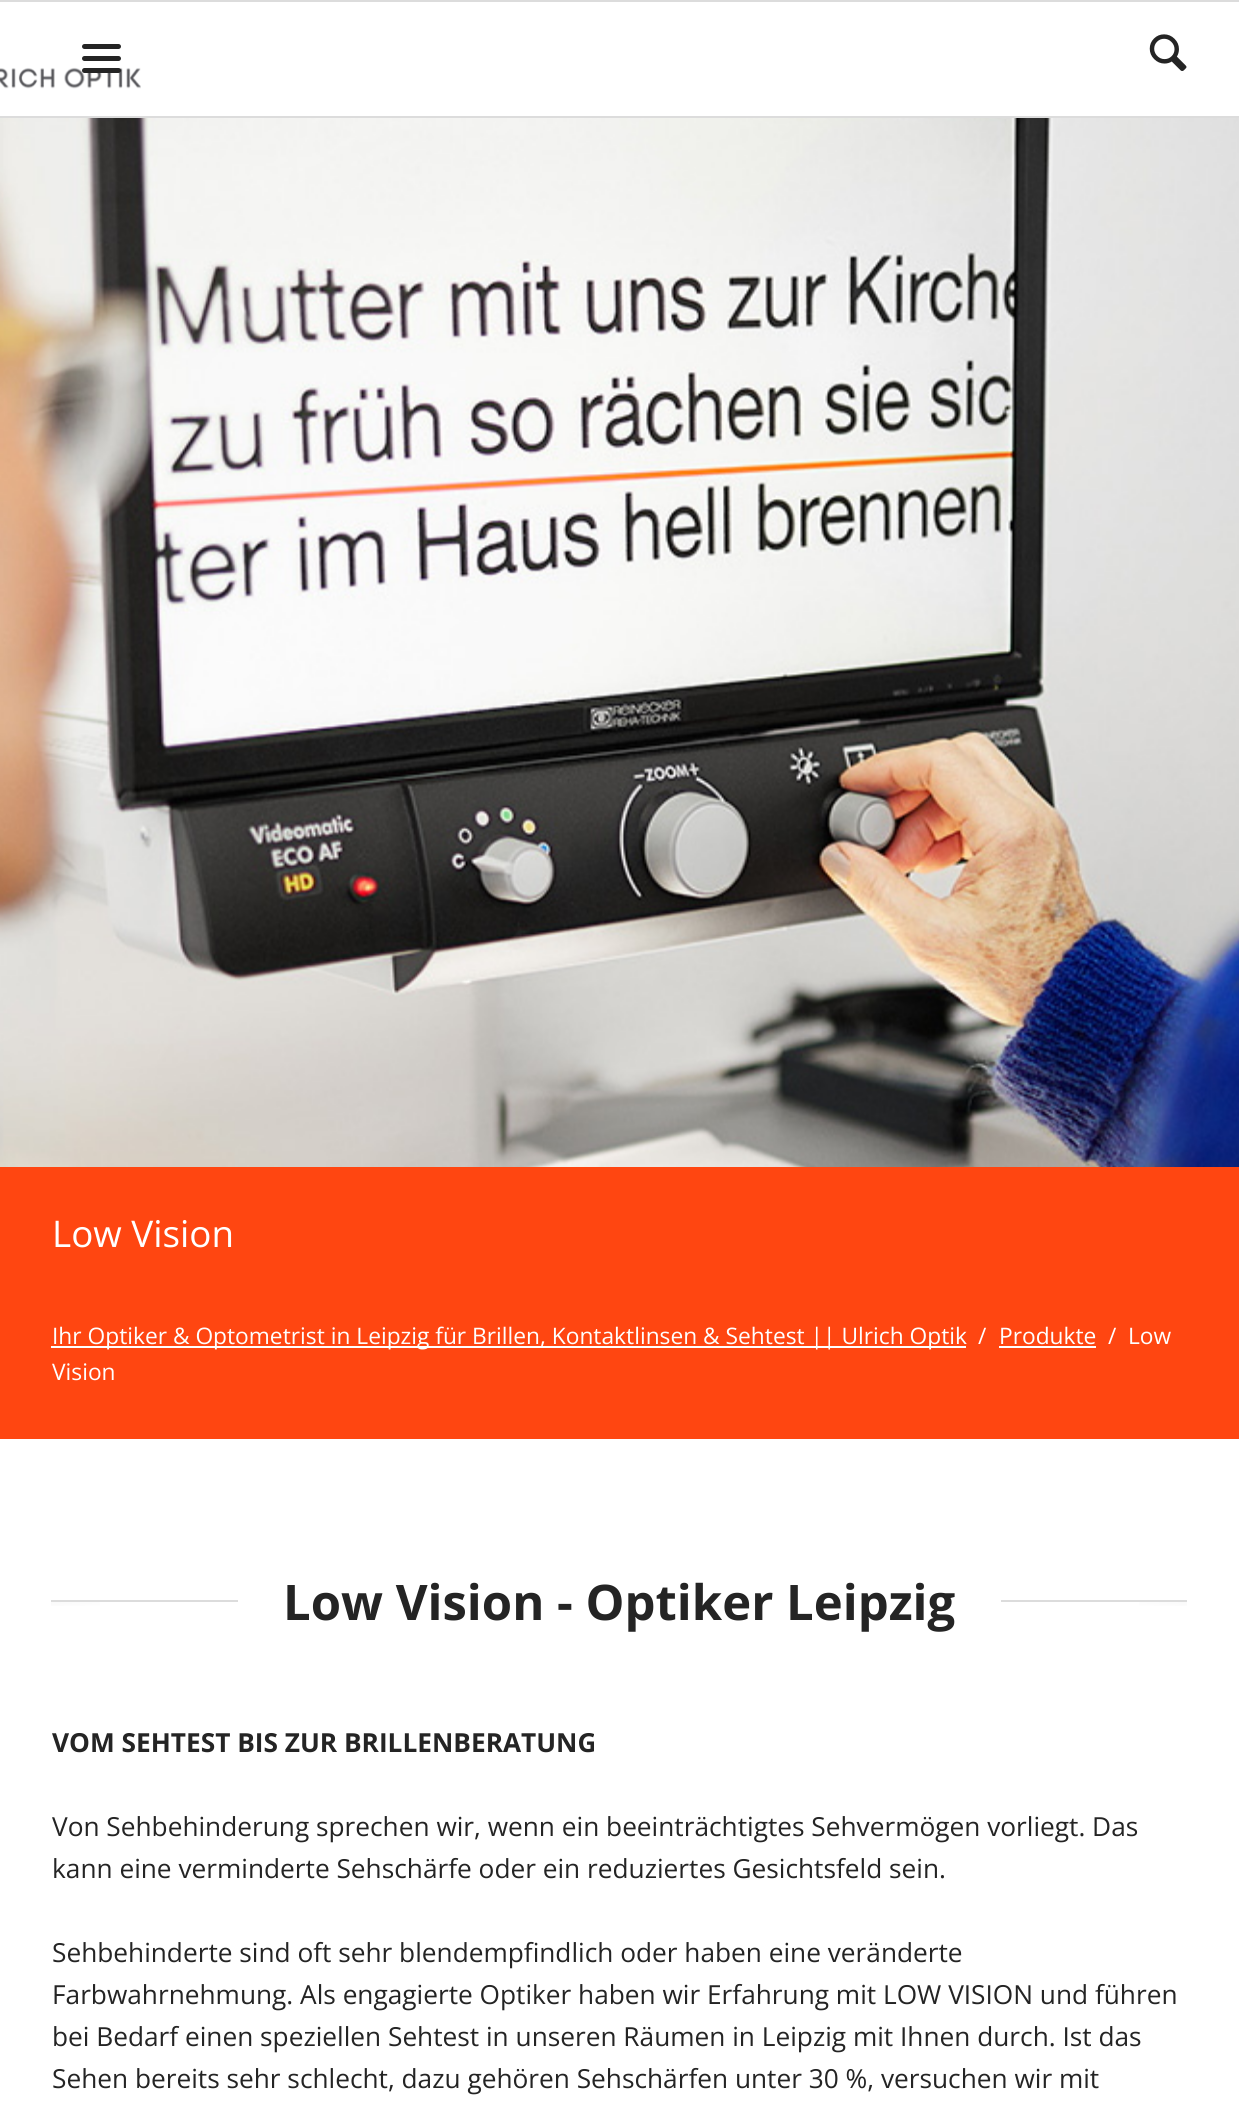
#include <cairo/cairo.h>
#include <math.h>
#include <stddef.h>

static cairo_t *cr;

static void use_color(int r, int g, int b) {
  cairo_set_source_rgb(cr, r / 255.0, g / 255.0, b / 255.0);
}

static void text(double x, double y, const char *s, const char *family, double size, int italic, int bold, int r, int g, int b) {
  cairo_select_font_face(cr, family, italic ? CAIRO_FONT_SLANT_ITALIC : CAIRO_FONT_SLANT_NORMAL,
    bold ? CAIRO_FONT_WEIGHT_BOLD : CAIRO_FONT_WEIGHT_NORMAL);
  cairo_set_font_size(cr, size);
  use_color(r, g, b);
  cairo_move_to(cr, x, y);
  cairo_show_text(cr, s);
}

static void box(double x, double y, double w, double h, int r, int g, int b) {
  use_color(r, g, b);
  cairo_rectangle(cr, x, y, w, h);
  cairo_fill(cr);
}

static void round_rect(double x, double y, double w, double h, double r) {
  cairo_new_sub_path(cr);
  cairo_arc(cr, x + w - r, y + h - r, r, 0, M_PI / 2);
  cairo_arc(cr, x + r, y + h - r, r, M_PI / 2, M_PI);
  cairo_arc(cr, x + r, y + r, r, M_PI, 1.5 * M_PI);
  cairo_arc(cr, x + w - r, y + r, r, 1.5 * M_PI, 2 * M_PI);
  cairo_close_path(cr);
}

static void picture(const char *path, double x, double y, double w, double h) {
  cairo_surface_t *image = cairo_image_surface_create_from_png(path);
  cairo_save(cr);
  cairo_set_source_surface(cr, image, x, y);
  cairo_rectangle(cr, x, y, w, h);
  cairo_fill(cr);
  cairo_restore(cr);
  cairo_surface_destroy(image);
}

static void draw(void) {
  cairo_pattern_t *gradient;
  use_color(255, 255, 255);
  cairo_paint(cr);
  box(0, 0, 1239, 2, 220, 220, 220);
  box(0, 116, 1239, 2, 220, 220, 220);
  picture("img_02.png", 0, 67, 141, 22);
  use_color(36, 36, 36);
  round_rect(82, 68, 39, 5, 2.5);
  cairo_fill(cr);
  round_rect(82, 56, 39, 5, 2.5);
  cairo_fill(cr);
  round_rect(82, 44, 39, 5, 2.5);
  cairo_fill(cr);
  picture("img_01.png", 1149, 34, 38, 37);
  picture("img_03.png", 0, 118, 1239, 1049);
  box(0, 1167, 1239, 272, 255, 70, 17);
  box(51, 1346, 915, 2, 255, 255, 255);
  box(999, 1346, 97, 2, 255, 255, 255);
  gradient = cairo_pattern_create_radial(0, 0, 0, 0, 0, 1);
  cairo_pattern_set_matrix(gradient, &(cairo_matrix_t){1.0 / 803, 0, 0, 1.0 / 20, -1.0 * -330 / 803, -1.0 * 1601 / 20});
  cairo_pattern_add_color_stop_rgba(gradient, 0, 0.902, 0.902, 0.902, 1);
  cairo_pattern_add_color_stop_rgba(gradient, 0.6, 1, 1, 1, 1);
  cairo_set_source(cr, gradient);
  cairo_pattern_destroy(gradient);
  cairo_rectangle(cr, 51, 1602, 49, 4);
  cairo_fill(cr);
  box(51, 1600, 187, 2, 220, 220, 220);
  gradient = cairo_pattern_create_radial(0, 0, 0, 0, 0, 1);
  cairo_pattern_set_matrix(gradient, &(cairo_matrix_t){1.0 / 803, 0, 0, 1.0 / 20, -1.0 * 1569 / 803, -1.0 * 1601 / 20});
  cairo_pattern_add_color_stop_rgba(gradient, 0, 0.902, 0.902, 0.902, 1);
  cairo_pattern_add_color_stop_rgba(gradient, 0.6, 1, 1, 1, 1);
  cairo_set_source(cr, gradient);
  cairo_pattern_destroy(gradient);
  cairo_rectangle(cr, 1139, 1602, 48, 4);
  cairo_fill(cr);
  box(1001, 1600, 186, 2, 220, 220, 220);
  text(52, 1247, "Low Vision", "Open Sans", 36.75, 0, 0, 255, 255, 255);
  text(52, 1344, "Ihr Optiker & Optometrist in Leipzig für Brillen, Kontaktlinsen & Sehtest || Ulrich Optik", "Open Sans", 22.75, 0, 0, 255, 255, 255);
  text(978, 1344, "/", "Open Sans", 22.75, 0, 0, 255, 255, 255);
  text(999, 1344, "Produkte", "Open Sans", 22.75, 0, 0, 255, 255, 255);
  text(1108, 1344, "/", "Open Sans", 22.75, 0, 0, 255, 255, 255);
  text(1128, 1344, "Low", "Open Sans", 22.75, 0, 0, 255, 255, 255);
  text(52, 1380, "Vision", "Open Sans", 22.75, 0, 0, 255, 255, 255);
  text(283, 1620, "Low Vision - Optiker Leipzig", "Open Sans", 49, 0, 1, 36, 36, 36);
  text(52, 1752, "VOM SEHTEST BIS ZUR BRILLENBERATUNG", "Open Sans", 26.25, 0, 1, 36, 36, 36);
  text(52, 1836, "Von Sehbehinderung sprechen wir, wenn ein beeinträchtigtes Sehvermögen vorliegt. Das", "Open Sans", 26.25, 0, 0, 36, 36, 36);
  text(52, 1878, "kann eine verminderte Sehschärfe oder ein reduziertes Gesichtsfeld sein.", "Open Sans", 26.25, 0, 0, 36, 36, 36);
  text(52, 1962, "Sehbehinderte sind oft sehr blendempfindlich oder haben eine veränderte", "Open Sans", 26.25, 0, 0, 36, 36, 36);
  text(52, 2004, "Farbwahrnehmung. Als engagierte Optiker haben wir Erfahrung mit LOW VISION und führen", "Open Sans", 26.25, 0, 0, 36, 36, 36);
  text(52, 2046, "bei Bedarf einen speziellen Sehtest in unseren Räumen in Leipzig mit Ihnen durch. Ist das", "Open Sans", 26.25, 0, 0, 36, 36, 36);
  text(52, 2088, "Sehen bereits sehr schlecht, dazu gehören Sehschärfen unter 30 %, versuchen wir mit", "Open Sans", 26.25, 0, 0, 36, 36, 36);
}

int main(void) {
  cairo_surface_t *surface = cairo_image_surface_create(CAIRO_FORMAT_RGB24, 1239, 2104);
  cr = cairo_create(surface);
  cairo_font_options_t *options = cairo_font_options_create();
  cairo_font_options_set_hint_metrics(options, CAIRO_HINT_METRICS_OFF);
  cairo_font_options_set_hint_style(options, CAIRO_HINT_STYLE_NONE);
  cairo_set_font_options(cr, options);
  cairo_set_miter_limit(cr, 4);
  draw();
  cairo_surface_write_to_png(surface, "out.png");
  cairo_font_options_destroy(options);
  cairo_destroy(cr);
  cairo_surface_destroy(surface);
  return 0;
}
